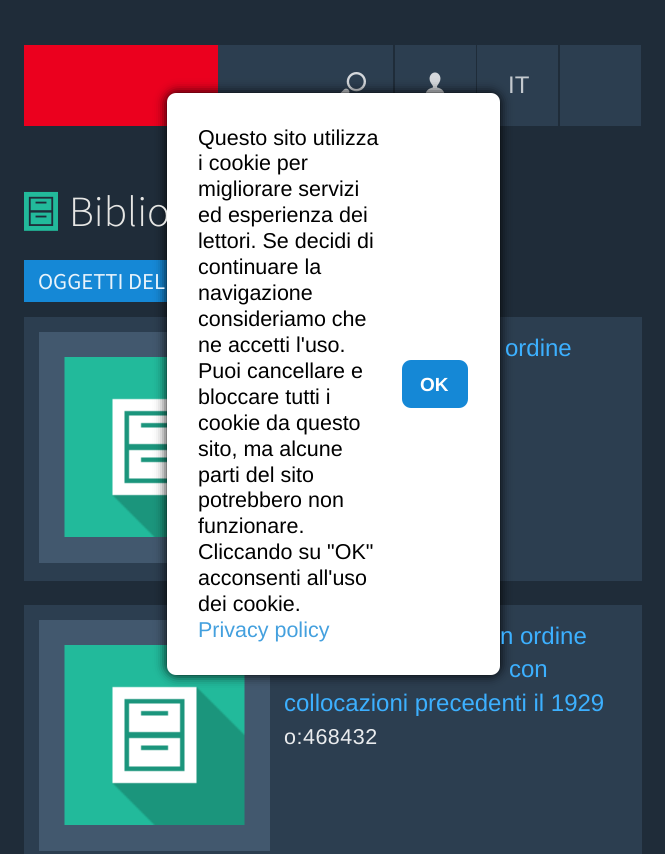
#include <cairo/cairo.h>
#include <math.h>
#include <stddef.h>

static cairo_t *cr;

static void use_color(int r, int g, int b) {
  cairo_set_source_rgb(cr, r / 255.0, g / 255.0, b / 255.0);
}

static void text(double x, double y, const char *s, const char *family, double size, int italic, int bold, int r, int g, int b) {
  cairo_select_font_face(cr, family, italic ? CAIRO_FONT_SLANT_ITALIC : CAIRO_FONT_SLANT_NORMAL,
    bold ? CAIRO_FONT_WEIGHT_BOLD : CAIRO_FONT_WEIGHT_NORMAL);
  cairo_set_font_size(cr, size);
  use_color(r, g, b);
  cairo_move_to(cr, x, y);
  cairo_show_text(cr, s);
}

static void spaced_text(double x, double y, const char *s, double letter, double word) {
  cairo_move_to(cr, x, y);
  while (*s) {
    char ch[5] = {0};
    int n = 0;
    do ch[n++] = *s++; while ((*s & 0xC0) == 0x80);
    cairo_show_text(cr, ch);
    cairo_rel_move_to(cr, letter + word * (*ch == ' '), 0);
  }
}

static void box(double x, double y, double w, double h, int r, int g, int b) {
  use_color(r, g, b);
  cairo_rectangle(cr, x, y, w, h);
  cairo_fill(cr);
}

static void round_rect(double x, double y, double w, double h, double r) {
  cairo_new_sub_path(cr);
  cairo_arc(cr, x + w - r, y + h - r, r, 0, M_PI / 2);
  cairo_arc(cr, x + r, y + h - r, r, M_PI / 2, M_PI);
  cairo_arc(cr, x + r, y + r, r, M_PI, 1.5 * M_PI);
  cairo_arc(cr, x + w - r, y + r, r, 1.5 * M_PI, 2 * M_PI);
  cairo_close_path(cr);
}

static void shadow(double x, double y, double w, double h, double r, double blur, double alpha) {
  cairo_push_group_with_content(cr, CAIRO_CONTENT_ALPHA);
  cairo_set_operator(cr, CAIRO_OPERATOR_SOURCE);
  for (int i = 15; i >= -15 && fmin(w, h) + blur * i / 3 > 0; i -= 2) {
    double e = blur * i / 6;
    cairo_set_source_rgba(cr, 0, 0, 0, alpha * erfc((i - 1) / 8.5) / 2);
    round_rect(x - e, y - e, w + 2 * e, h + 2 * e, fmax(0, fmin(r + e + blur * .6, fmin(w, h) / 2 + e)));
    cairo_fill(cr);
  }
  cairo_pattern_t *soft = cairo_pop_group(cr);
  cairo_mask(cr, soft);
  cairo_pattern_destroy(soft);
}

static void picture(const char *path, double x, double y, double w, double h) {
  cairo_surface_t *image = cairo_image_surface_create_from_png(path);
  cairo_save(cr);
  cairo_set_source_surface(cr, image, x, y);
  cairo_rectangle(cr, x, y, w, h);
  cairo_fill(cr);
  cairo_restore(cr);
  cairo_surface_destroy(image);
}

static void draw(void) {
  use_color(31, 44, 57);
  cairo_paint(cr);
  box(218, 45, 423, 81, 44, 62, 80);
  box(24, 45, 194, 81, 235, 0, 30);
  box(393, 45, 2, 48, 31, 44, 57);
  picture("img_01.png", 340, 72, 26, 21);
  box(476, 45, 1, 48, 31, 44, 57);
  picture("img_02.png", 425, 72, 20, 21);
  box(558, 45, 2, 81, 31, 44, 57);
  box(24, 260, 143, 42, 21, 136, 214);
  box(24, 317, 618, 264, 44, 62, 80);
  box(39, 332, 128, 231, 66, 88, 110);
  picture("img_04.png", 64, 357, 103, 180);
  box(24, 605, 618, 249, 44, 62, 80);
  box(39, 620, 231, 231, 66, 88, 110);
  picture("img_05.png", 64, 645, 181, 180);
  use_color(0, 0, 0);
  shadow(167, 93, 333, 582, 9, 6, 1);
  picture("img_03.png", 24, 191, 34, 40);
  text(508, 93, "IT", "Liberation Sans", 24, 0, 0, 196, 201, 206);
  text(69, 226, "Biblio", "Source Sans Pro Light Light", 43, 0, 0, 230, 230, 228);
  use_color(255, 255, 255);
  round_rect(168, 94, 331, 580, 8);
  cairo_fill_preserve(cr);
  cairo_stroke(cr);
  text(198, 637, "Privacy policy", "Liberation Sans", 21.5, 0, 0, 68, 160, 222);
  use_color(21, 136, 214);
  round_rect(402, 360, 66, 48, 9);
  cairo_fill(cr);
  text(420, 391, "OK", "Liberation Sans", 19, 0, 1, 255, 255, 255);
  text(198, 611, "dei cookie.", "Liberation Sans", 21.5, 0, 0, 0, 0, 0);
  text(198, 585, "acconsenti all'uso", "Liberation Sans", 21.5, 0, 0, 0, 0, 0);
  text(198, 559, "Cliccando su \"OK\"", "Liberation Sans", 21.5, 0, 0, 0, 0, 0);
  text(198, 533, "funzionare.", "Liberation Sans", 21.5, 0, 0, 0, 0, 0);
  text(198, 507, "potrebbero non", "Liberation Sans", 21.5, 0, 0, 0, 0, 0);
  text(198, 482, "parti del sito", "Liberation Sans", 21.5, 0, 0, 0, 0, 0);
  text(198, 456, "sito, ma alcune", "Liberation Sans", 21.5, 0, 0, 0, 0, 0);
  text(198, 430, "cookie da questo", "Liberation Sans", 21.5, 0, 0, 0, 0, 0);
  text(198, 404, "bloccare tutti i", "Liberation Sans", 21.5, 0, 0, 0, 0, 0);
  text(198, 378, "Puoi cancellare e", "Liberation Sans", 21.5, 0, 0, 0, 0, 0);
  text(198, 352, "ne accetti l'uso.", "Liberation Sans", 21.5, 0, 0, 0, 0, 0);
  text(198, 326, "consideriamo che", "Liberation Sans", 21.5, 0, 0, 0, 0, 0);
  text(198, 300, "navigazione", "Liberation Sans", 21.5, 0, 0, 0, 0, 0);
  text(198, 274, "continuare la", "Liberation Sans", 21.5, 0, 0, 0, 0, 0);
  text(198, 248, "lettori. Se decidi di", "Liberation Sans", 21.5, 0, 0, 0, 0, 0);
  text(198, 222, "ed esperienza dei", "Liberation Sans", 21.5, 0, 0, 0, 0, 0);
  text(198, 196, "migliorare servizi", "Liberation Sans", 21.5, 0, 0, 0, 0, 0);
  text(198, 170, "i cookie per", "Liberation Sans", 21.5, 0, 0, 0, 0, 0);
  text(198, 145, "Questo sito utilizza", "Liberation Sans", 21.5, 0, 0, 0, 0, 0);
  text(38, 289, "OGGETTI DEL", "Source Sans Pro", 22.75, 0, 0, 232, 243, 251);
  text(505, 356, "ordine", "Liberation Sans", 24, 0, 0, 60, 176, 255);
  text(500, 644, "n ordine", "Liberation Sans", 24, 0, 0, 60, 176, 255);
  text(509, 677, "con", "Liberation Sans", 24, 0, 0, 60, 176, 255);
  text(284, 711, "collocazioni precedenti il 1929", "Liberation Sans", 24, 0, 0, 60, 176, 255);
  cairo_set_font_size(cr, 21.5);
  use_color(234, 236, 238);
  spaced_text(284, 744, "o:468432", 0.5, 0);
}

int main(void) {
  cairo_surface_t *surface = cairo_image_surface_create(CAIRO_FORMAT_RGB24, 665, 854);
  cr = cairo_create(surface);
  cairo_font_options_t *options = cairo_font_options_create();
  cairo_font_options_set_hint_metrics(options, CAIRO_HINT_METRICS_OFF);
  cairo_font_options_set_hint_style(options, CAIRO_HINT_STYLE_NONE);
  cairo_set_font_options(cr, options);
  cairo_set_miter_limit(cr, 4);
  draw();
  cairo_surface_write_to_png(surface, "out.png");
  cairo_font_options_destroy(options);
  cairo_destroy(cr);
  cairo_surface_destroy(surface);
  return 0;
}
